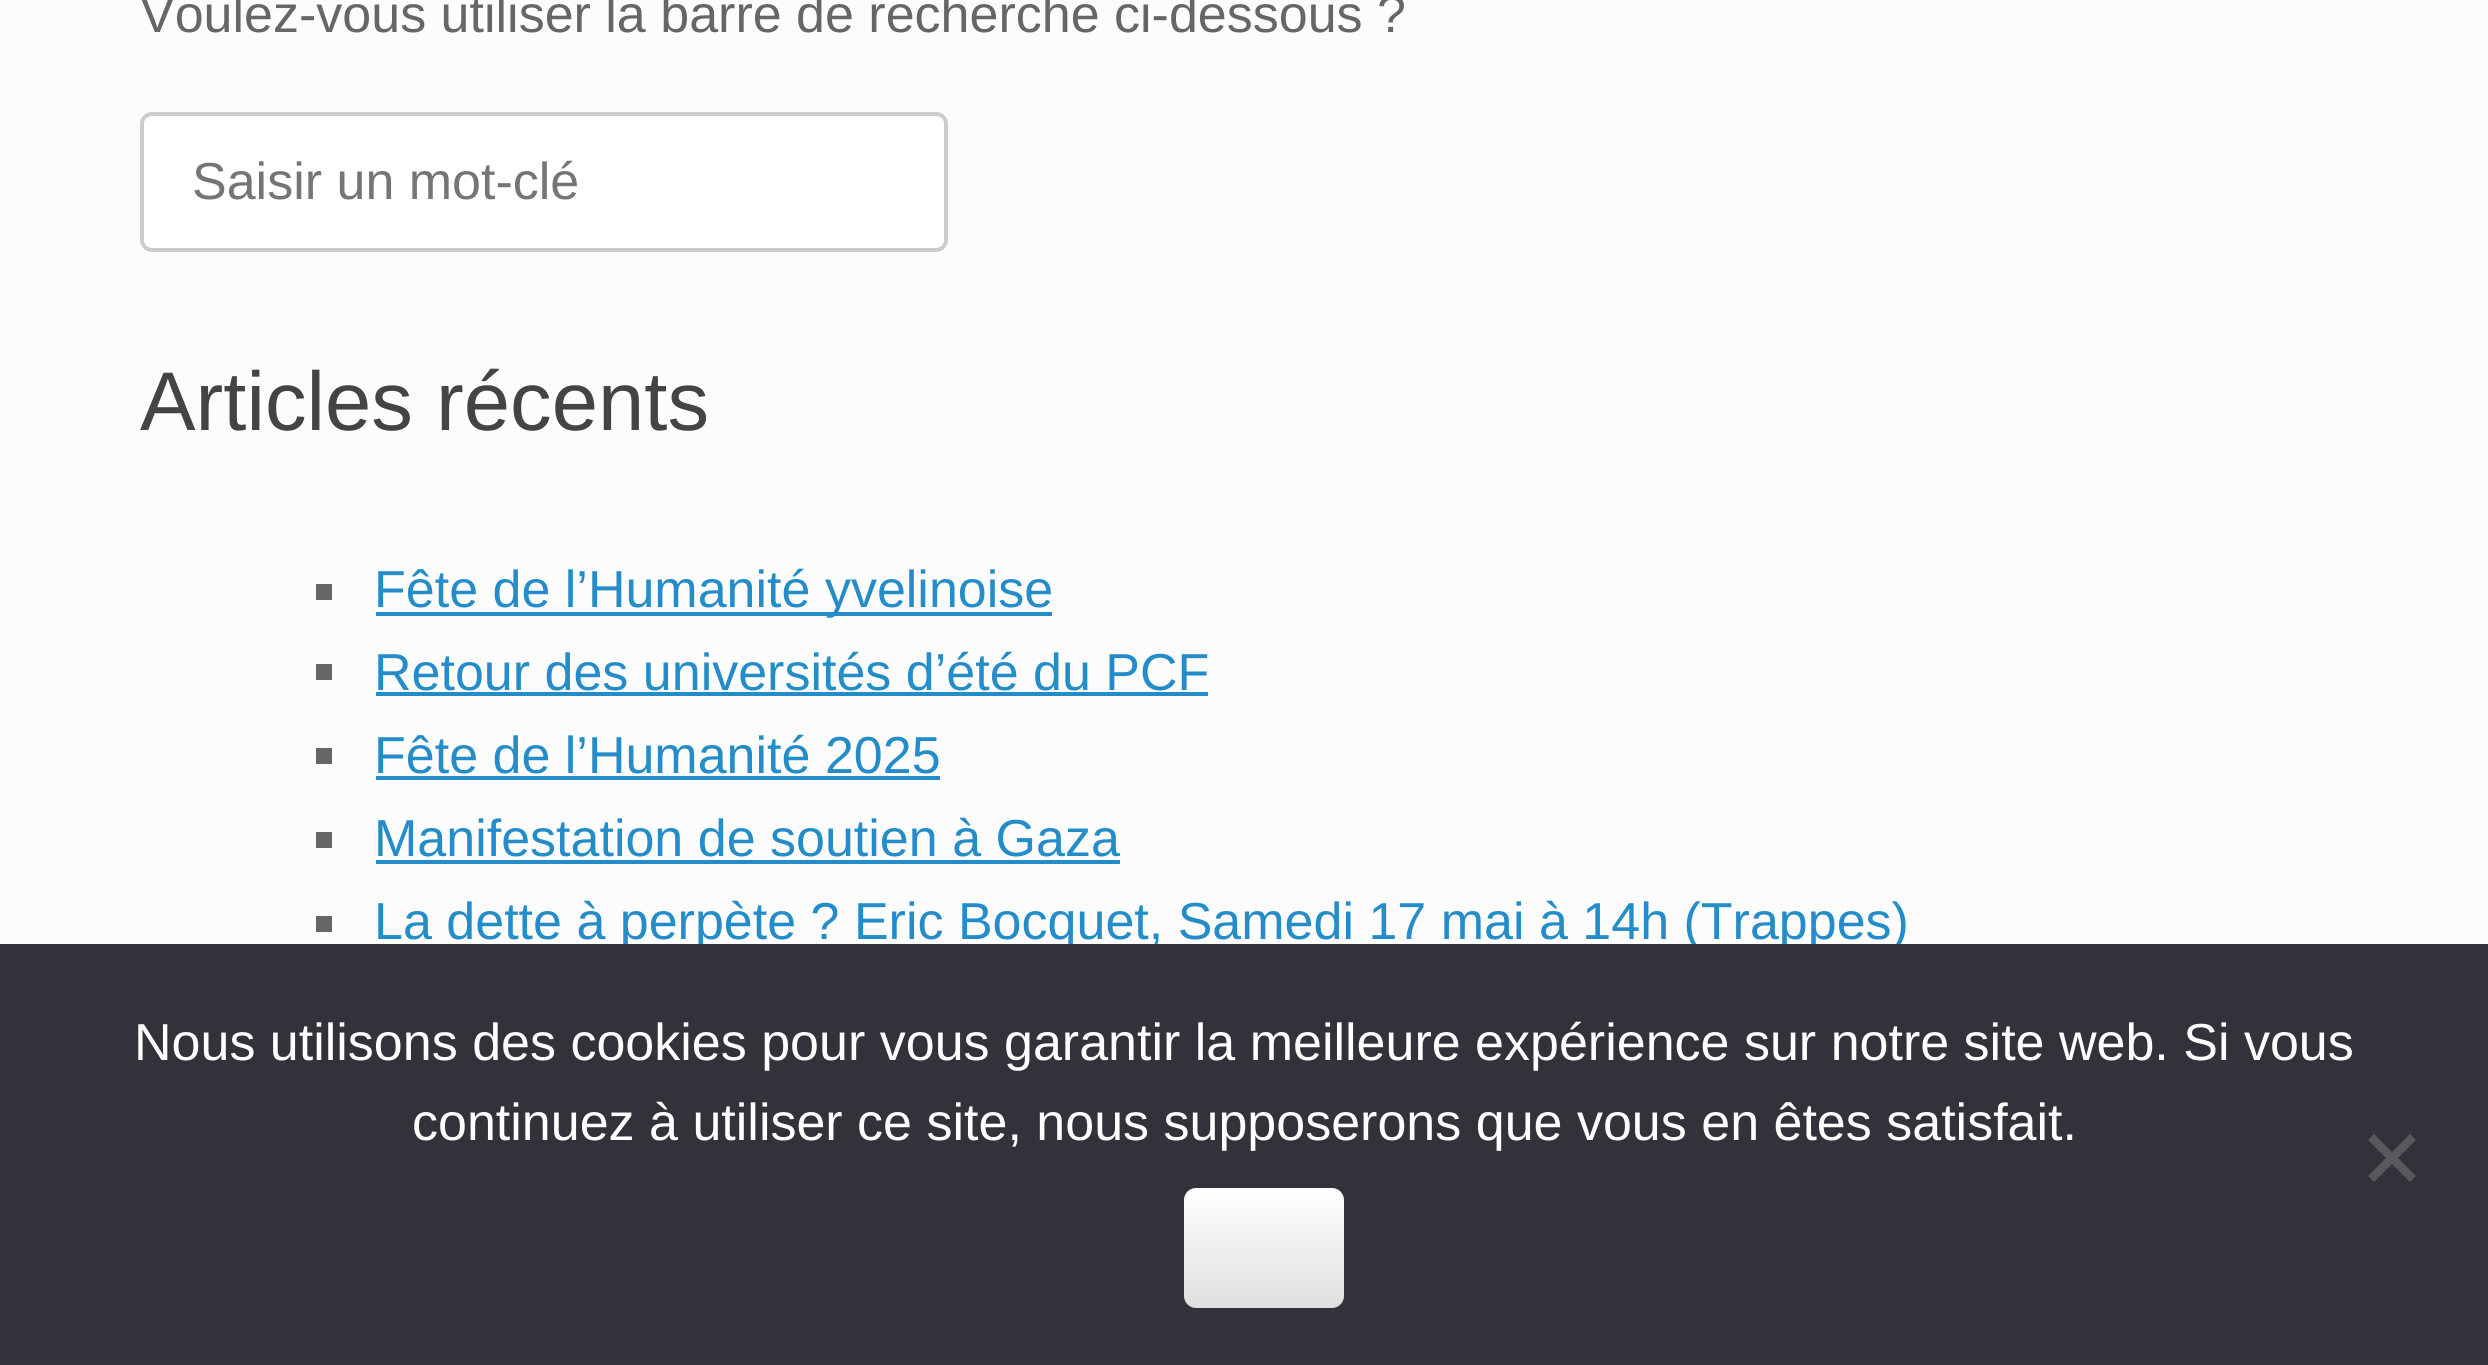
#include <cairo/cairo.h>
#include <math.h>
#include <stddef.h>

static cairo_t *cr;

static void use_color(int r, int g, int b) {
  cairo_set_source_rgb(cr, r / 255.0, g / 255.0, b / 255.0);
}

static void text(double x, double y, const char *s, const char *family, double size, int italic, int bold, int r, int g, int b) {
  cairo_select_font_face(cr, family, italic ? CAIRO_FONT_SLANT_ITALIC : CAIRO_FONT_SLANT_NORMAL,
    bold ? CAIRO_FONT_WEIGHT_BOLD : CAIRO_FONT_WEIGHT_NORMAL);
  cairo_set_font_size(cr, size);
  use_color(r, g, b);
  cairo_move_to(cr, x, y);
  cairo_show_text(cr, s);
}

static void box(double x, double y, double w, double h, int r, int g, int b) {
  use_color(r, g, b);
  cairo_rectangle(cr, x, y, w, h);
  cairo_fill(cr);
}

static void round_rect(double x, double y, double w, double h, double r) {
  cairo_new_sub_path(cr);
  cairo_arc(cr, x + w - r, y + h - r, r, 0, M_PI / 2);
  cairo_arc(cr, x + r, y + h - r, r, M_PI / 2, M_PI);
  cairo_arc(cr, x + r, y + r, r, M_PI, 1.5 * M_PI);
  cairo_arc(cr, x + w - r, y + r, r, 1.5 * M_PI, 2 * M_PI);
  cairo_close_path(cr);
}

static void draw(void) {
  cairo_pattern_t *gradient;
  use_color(252, 252, 252);
  cairo_paint(cr);
  use_color(255, 255, 255);
  round_rect(142, 114, 804, 136, 10);
  cairo_fill_preserve(cr);
  use_color(204, 204, 204);
  cairo_set_line_width(cr, 4);
  cairo_stroke(cr);
  box(316, 584, 16, 16, 102, 102, 102);
  box(376, 612, 676, 4, 36, 140, 200);
  box(316, 664, 16, 16, 102, 102, 102);
  box(376, 692, 832, 4, 36, 140, 200);
  box(316, 748, 16, 16, 102, 102, 102);
  box(376, 776, 564, 4, 36, 140, 200);
  box(316, 832, 16, 16, 102, 102, 102);
  box(376, 860, 744, 4, 36, 140, 200);
  box(316, 916, 16, 16, 102, 102, 102);
  text(140, 32, "Voulez-vous utiliser la barre de recherche ci-dessous ?", "Liberation Sans", 52, 0, 0, 102, 102, 102);
  text(192, 199, "Saisir un mot-clé", "Liberation Sans", 52, 0, 0, 117, 117, 117);
  text(140, 430, "Articles récents", "Liberation Sans", 83.25, 0, 0, 68, 68, 68);
  text(374, 607, "Fête de l’Humanité yvelinoise", "Liberation Sans", 52, 0, 0, 36, 140, 200);
  text(374, 690, "Retour des universités d’été du PCF", "Liberation Sans", 52, 0, 0, 36, 140, 200);
  text(374, 773, "Fête de l’Humanité 2025", "Liberation Sans", 52, 0, 0, 36, 140, 200);
  text(374, 856, "Manifestation de soutien à Gaza", "Liberation Sans", 52, 0, 0, 36, 140, 200);
  text(374, 939, "La dette à perpète ? Eric Bocquet, Samedi 17 mai à 14h (Trappes)", "Liberation Sans", 52, 0, 0, 36, 140, 200);
  box(0, 944, 2488, 421, 50, 50, 58);
  text(134, 1060, "Nous utilisons des cookies pour vous garantir la meilleure expérience sur notre site web. Si vous", "Liberation Sans", 52, 0, 0, 255, 255, 255);
  text(412, 1140, "continuez à utiliser ce site, nous supposerons que vous en êtes satisfait.", "Liberation Sans", 52, 0, 0, 255, 255, 255);
  use_color(89, 89, 93);
  cairo_new_path(cr);
  cairo_move_to(cr, 2410, 1134);
  cairo_line_to(cr, 2416, 1140);
  cairo_line_to(cr, 2374, 1182);
  cairo_line_to(cr, 2368, 1176);
  cairo_close_path(cr);
  cairo_fill(cr);
  cairo_new_path(cr);
  cairo_move_to(cr, 2368, 1140);
  cairo_line_to(cr, 2374, 1134);
  cairo_line_to(cr, 2416, 1176);
  cairo_line_to(cr, 2410, 1182);
  cairo_close_path(cr);
  cairo_fill(cr);
  gradient = cairo_pattern_create_linear(1184, 1308, 1184, 1188);
  cairo_pattern_add_color_stop_rgba(gradient, 0, 0.875, 0.875, 0.875, 1);
  cairo_pattern_add_color_stop_rgba(gradient, 1, 1, 1, 1, 1);
  cairo_set_source(cr, gradient);
  cairo_pattern_destroy(gradient);
  round_rect(1184, 1188, 160, 120, 12);
  cairo_fill(cr);
}

int main(void) {
  cairo_surface_t *surface = cairo_image_surface_create(CAIRO_FORMAT_RGB24, 2488, 1365);
  cr = cairo_create(surface);
  cairo_font_options_t *options = cairo_font_options_create();
  cairo_font_options_set_hint_metrics(options, CAIRO_HINT_METRICS_OFF);
  cairo_font_options_set_hint_style(options, CAIRO_HINT_STYLE_NONE);
  cairo_set_font_options(cr, options);
  cairo_set_miter_limit(cr, 4);
  draw();
  cairo_surface_write_to_png(surface, "out.png");
  cairo_font_options_destroy(options);
  cairo_destroy(cr);
  cairo_surface_destroy(surface);
  return 0;
}
